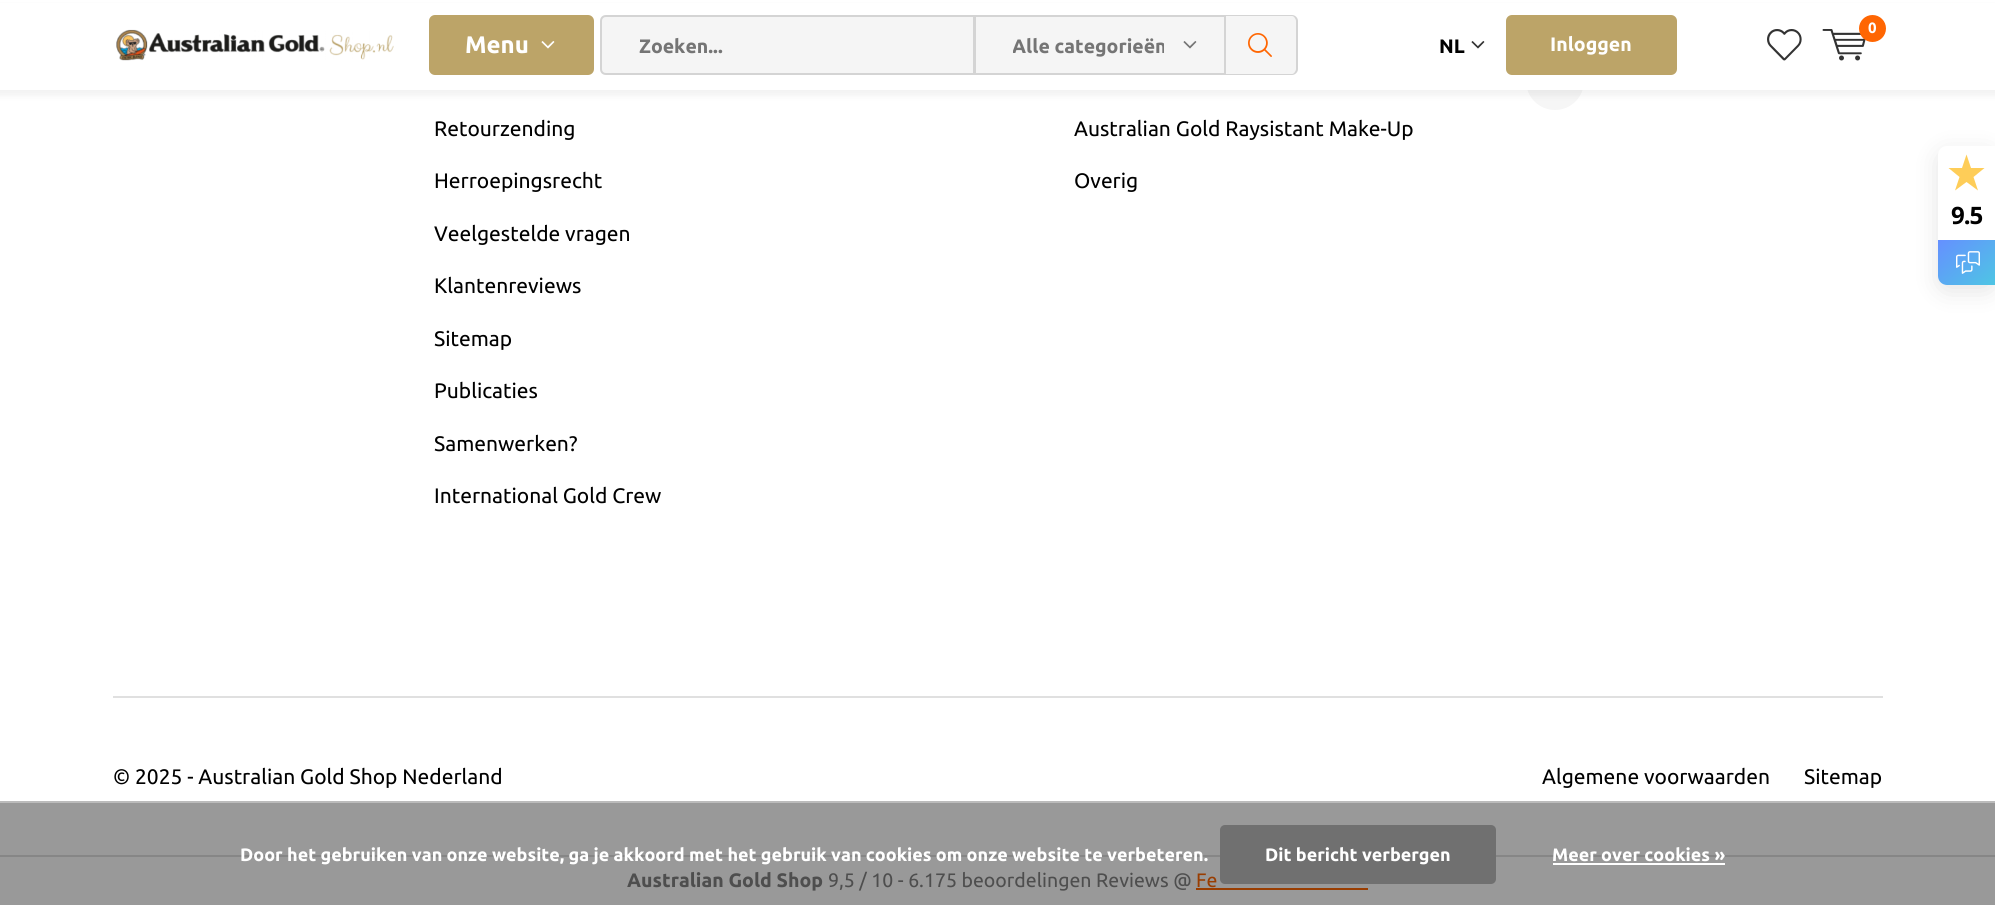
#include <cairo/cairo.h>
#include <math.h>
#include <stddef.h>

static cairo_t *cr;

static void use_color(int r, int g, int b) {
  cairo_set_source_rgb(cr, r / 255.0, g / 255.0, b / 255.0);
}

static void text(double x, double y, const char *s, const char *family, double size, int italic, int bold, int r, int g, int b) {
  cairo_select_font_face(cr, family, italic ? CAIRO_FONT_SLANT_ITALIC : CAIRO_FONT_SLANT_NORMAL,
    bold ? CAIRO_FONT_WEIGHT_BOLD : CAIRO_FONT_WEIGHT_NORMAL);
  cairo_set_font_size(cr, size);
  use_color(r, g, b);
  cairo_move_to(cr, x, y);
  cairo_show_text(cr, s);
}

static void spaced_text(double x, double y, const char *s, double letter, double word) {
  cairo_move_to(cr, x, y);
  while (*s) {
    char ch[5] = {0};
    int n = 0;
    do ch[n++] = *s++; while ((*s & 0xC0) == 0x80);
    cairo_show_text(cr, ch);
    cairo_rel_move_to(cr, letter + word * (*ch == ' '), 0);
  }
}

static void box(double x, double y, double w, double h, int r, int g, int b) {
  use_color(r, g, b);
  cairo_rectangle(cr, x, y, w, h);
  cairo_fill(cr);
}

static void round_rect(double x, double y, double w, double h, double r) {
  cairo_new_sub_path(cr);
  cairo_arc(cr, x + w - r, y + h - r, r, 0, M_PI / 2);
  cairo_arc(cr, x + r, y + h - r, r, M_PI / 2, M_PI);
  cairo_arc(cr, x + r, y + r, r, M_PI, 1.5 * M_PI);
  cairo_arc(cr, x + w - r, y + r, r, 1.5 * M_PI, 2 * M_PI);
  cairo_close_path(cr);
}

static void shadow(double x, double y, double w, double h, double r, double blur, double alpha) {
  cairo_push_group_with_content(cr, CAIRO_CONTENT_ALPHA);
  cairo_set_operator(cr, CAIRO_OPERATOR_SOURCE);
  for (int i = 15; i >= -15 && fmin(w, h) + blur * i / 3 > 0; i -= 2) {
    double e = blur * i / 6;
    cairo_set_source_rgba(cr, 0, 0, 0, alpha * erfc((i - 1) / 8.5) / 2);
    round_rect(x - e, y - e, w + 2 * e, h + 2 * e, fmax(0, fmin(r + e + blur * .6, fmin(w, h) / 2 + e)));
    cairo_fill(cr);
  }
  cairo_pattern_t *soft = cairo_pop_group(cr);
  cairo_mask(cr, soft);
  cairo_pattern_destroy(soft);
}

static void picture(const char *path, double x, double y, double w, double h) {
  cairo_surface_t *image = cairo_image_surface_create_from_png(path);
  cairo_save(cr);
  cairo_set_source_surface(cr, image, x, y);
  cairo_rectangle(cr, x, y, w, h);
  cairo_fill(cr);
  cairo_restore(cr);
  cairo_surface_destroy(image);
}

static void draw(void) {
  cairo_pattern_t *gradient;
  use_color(255, 255, 255);
  cairo_paint(cr);
  box(0, 803, 1995, 102, 153, 153, 153);
  use_color(246, 246, 246);
  round_rect(1526, 51, 58, 59, 29);
  cairo_fill(cr);
  use_color(0, 0, 0);
  shadow(-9, 6, 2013, 90, 0, 3, 0.05);
  box(0, 3, 1995, 87, 255, 255, 255);
  picture("img_01.png", 116, 29, 278, 32);
  use_color(188, 164, 104);
  round_rect(429, 15, 165, 60, 6);
  cairo_fill(cr);
  picture("img_02.png", 541, 41, 14, 8);
  use_color(245, 245, 245);
  cairo_rectangle(cr, 975, 16, 250, 58);
  cairo_fill_preserve(cr);
  use_color(212, 212, 212);
  cairo_stroke(cr);
  use_color(245, 245, 245);
  cairo_new_path(cr);
  cairo_move_to(cr, 606, 16);
  cairo_line_to(cr, 974, 16);
  cairo_line_to(cr, 974, 74);
  cairo_line_to(cr, 606, 74);
  cairo_curve_to(cr, 603, 74, 601, 72, 601, 69);
  cairo_line_to(cr, 601, 21);
  cairo_curve_to(cr, 601, 18, 603, 16, 606, 16);
  cairo_close_path(cr);
  cairo_fill_preserve(cr);
  use_color(212, 212, 212);
  cairo_stroke(cr);
  picture("img_03.png", 1183, 41, 14, 8);
  use_color(245, 245, 245);
  cairo_new_path(cr);
  cairo_move_to(cr, 1226, 15);
  cairo_line_to(cr, 1292, 15);
  cairo_curve_to(cr, 1295.5, 15, 1298, 17.5, 1298, 21);
  cairo_line_to(cr, 1298, 69);
  cairo_curve_to(cr, 1298, 72.5, 1295.5, 75, 1292, 75);
  cairo_line_to(cr, 1226, 75);
  cairo_close_path(cr);
  cairo_fill(cr);
  use_color(212, 212, 212);
  cairo_set_fill_rule(cr, CAIRO_FILL_RULE_EVEN_ODD);
  cairo_new_path(cr);
  cairo_move_to(cr, 1226, 15);
  cairo_line_to(cr, 1292, 15);
  cairo_curve_to(cr, 1295, 15, 1298, 18, 1298, 21);
  cairo_line_to(cr, 1298, 69);
  cairo_curve_to(cr, 1298, 72, 1295, 75, 1292, 75);
  cairo_line_to(cr, 1226, 75);
  cairo_close_path(cr);
  cairo_move_to(cr, 1226, 16);
  cairo_line_to(cr, 1292, 16);
  cairo_curve_to(cr, 1294, 16, 1296, 19, 1296, 21);
  cairo_line_to(cr, 1296, 69);
  cairo_curve_to(cr, 1296, 71, 1294, 74, 1292, 74);
  cairo_line_to(cr, 1226, 74);
  cairo_close_path(cr);
  cairo_fill(cr);
  picture("img_04.png", 1248, 33, 24, 24);
  picture("img_05.png", 1471, 41, 14, 8);
  use_color(188, 164, 104);
  round_rect(1506, 15, 171, 60, 6);
  cairo_fill(cr);
  picture("img_06.png", 1767, 29, 35, 32);
  picture("img_07.png", 1822, 29, 44, 32);
  use_color(255, 102, 2);
  cairo_arc(cr, 1872.5, 28.5, 13.5, 0, 2 * M_PI);
  cairo_fill(cr);
  box(113, 696, 1770, 2, 224, 224, 224);
  use_color(30, 30, 30);
  shadow(1938, 152, 57, 139, 9, 12, 0.12);
  use_color(255, 255, 255);
  cairo_new_path(cr);
  cairo_move_to(cr, 1947, 146);
  cairo_line_to(cr, 1995, 146);
  cairo_line_to(cr, 1995, 285);
  cairo_line_to(cr, 1947, 285);
  cairo_curve_to(cr, 1942, 285, 1938, 281, 1938, 276);
  cairo_line_to(cr, 1938, 155);
  cairo_curve_to(cr, 1938, 150, 1942, 146, 1947, 146);
  cairo_close_path(cr);
  cairo_fill(cr);
  use_color(254, 205, 88);
  cairo_set_fill_rule(cr, CAIRO_FILL_RULE_WINDING);
  cairo_new_path(cr);
  cairo_move_to(cr, 1978, 190.5);
  cairo_line_to(cr, 1973.5, 177);
  cairo_line_to(cr, 1984.5, 168);
  cairo_line_to(cr, 1971, 168);
  cairo_line_to(cr, 1966.5, 154.5);
  cairo_line_to(cr, 1962, 168);
  cairo_line_to(cr, 1948.5, 168);
  cairo_line_to(cr, 1959.5, 177);
  cairo_line_to(cr, 1955, 190.5);
  cairo_line_to(cr, 1966.5, 182);
  cairo_close_path(cr);
  cairo_fill(cr);
  gradient = cairo_pattern_create_linear(1943, 236, 1990, 289);
  cairo_pattern_add_color_stop_rgba(gradient, 0, 0.396, 0.565, 1, 1);
  cairo_pattern_add_color_stop_rgba(gradient, 1, 0.306, 0.773, 0.894, 1);
  cairo_set_source(cr, gradient);
  cairo_pattern_destroy(gradient);
  cairo_new_path(cr);
  cairo_move_to(cr, 1938, 240);
  cairo_line_to(cr, 1995, 240);
  cairo_line_to(cr, 1995, 285);
  cairo_line_to(cr, 1947, 285);
  cairo_curve_to(cr, 1942, 285, 1938, 281, 1938, 276);
  cairo_close_path(cr);
  cairo_fill(cr);
  picture("img_08.png", 1956, 251, 24, 23);
  box(0, 801, 1995, 2, 187, 187, 187);
  box(0, 855, 1995, 2, 134, 134, 134);
  use_color(112, 112, 112);
  round_rect(1220, 825, 276, 59, 5);
  cairo_fill(cr);
  box(1553, 863, 172, 2, 255, 255, 255);
  box(1196, 888, 172, 2, 153, 61, 1);
  text(465, 53, "Menu", "Ubuntu", 24, 0, 1, 255, 255, 255);
  text(639, 53, "Zoeken...", "Ubuntu", 19.5, 0, 1, 117, 117, 117);
  cairo_save(cr);
  cairo_rectangle(cr, 1013, 17, 151, 57);
  cairo_clip(cr);
  text(1012, 53, "Alle categorieën", "Ubuntu", 19.5, 0, 1, 117, 117, 117);
  cairo_restore(cr);
  text(1439, 53, "NL", "Ubuntu", 19.5, 0, 1, 0, 0, 0);
  text(1550, 51, "Inloggen", "Ubuntu", 19.5, 0, 1, 255, 255, 255);
  text(1868, 33, "0", "Ubuntu", 15, 0, 1, 255, 255, 255);
  text(434, 136, "Retourzending", "Ubuntu", 21, 0, 0, 0, 0, 0);
  text(434, 188, "Herroepingsrecht", "Ubuntu", 21, 0, 0, 0, 0, 0);
  text(434, 241, "Veelgestelde vragen", "Ubuntu", 21, 0, 0, 0, 0, 0);
  text(434, 293, "Klantenreviews", "Ubuntu", 21, 0, 0, 0, 0, 0);
  text(434, 346, "Sitemap", "Ubuntu", 21, 0, 0, 0, 0, 0);
  text(434, 398, "Publicaties", "Ubuntu", 21, 0, 0, 0, 0, 0);
  text(434, 451, "Samenwerken?", "Ubuntu", 21, 0, 0, 0, 0, 0);
  text(434, 503, "International Gold Crew", "Ubuntu", 21, 0, 0, 0, 0, 0);
  text(1074, 136, "Australian Gold Raysistant Make-Up", "Ubuntu", 21, 0, 0, 0, 0, 0);
  text(1074, 188, "Overig", "Ubuntu", 21, 0, 0, 0, 0, 0);
  text(113, 784, "© 2025 - Australian Gold Shop Nederland", "Ubuntu", 21, 0, 0, 0, 0, 0);
  text(1542, 784, "Algemene voorwaarden", "Ubuntu", 21, 0, 0, 0, 0, 0);
  text(1804, 784, "Sitemap", "Ubuntu", 21, 0, 0, 0, 0, 0);
  cairo_select_font_face(cr, "Open Sans", CAIRO_FONT_SLANT_NORMAL, CAIRO_FONT_WEIGHT_BOLD);
  cairo_set_font_size(cr, 24);
  spaced_text(1951, 224, "9.5", -1, 0);
  text(240, 861, "Door het gebruiken van onze website, ga je akkoord met het gebruik van cookies om onze website te verbeteren.", "Ubuntu", 18, 0, 1, 255, 255, 255);
  text(1265, 861, "Dit bericht verbergen", "Ubuntu", 18, 0, 1, 255, 255, 255);
  text(1552, 861, "Meer over cookies »", "Ubuntu", 18, 0, 1, 255, 255, 255);
  text(627, 887, "Australian Gold Shop", "Ubuntu", 19.5, 0, 1, 78, 78, 78);
  text(828, 887, "9,5 / 10 - 6.175 beoordelingen Reviews @", "Ubuntu", 19.5, 0, 0, 78, 78, 78);
  text(1196, 887, "Fe", "Ubuntu", 19.5, 0, 0, 153, 61, 1);
}

int main(void) {
  cairo_surface_t *surface = cairo_image_surface_create(CAIRO_FORMAT_RGB24, 1995, 905);
  cr = cairo_create(surface);
  cairo_font_options_t *options = cairo_font_options_create();
  cairo_font_options_set_hint_metrics(options, CAIRO_HINT_METRICS_OFF);
  cairo_font_options_set_hint_style(options, CAIRO_HINT_STYLE_NONE);
  cairo_set_font_options(cr, options);
  cairo_set_miter_limit(cr, 4);
  draw();
  cairo_surface_write_to_png(surface, "out.png");
  cairo_font_options_destroy(options);
  cairo_destroy(cr);
  cairo_surface_destroy(surface);
  return 0;
}
